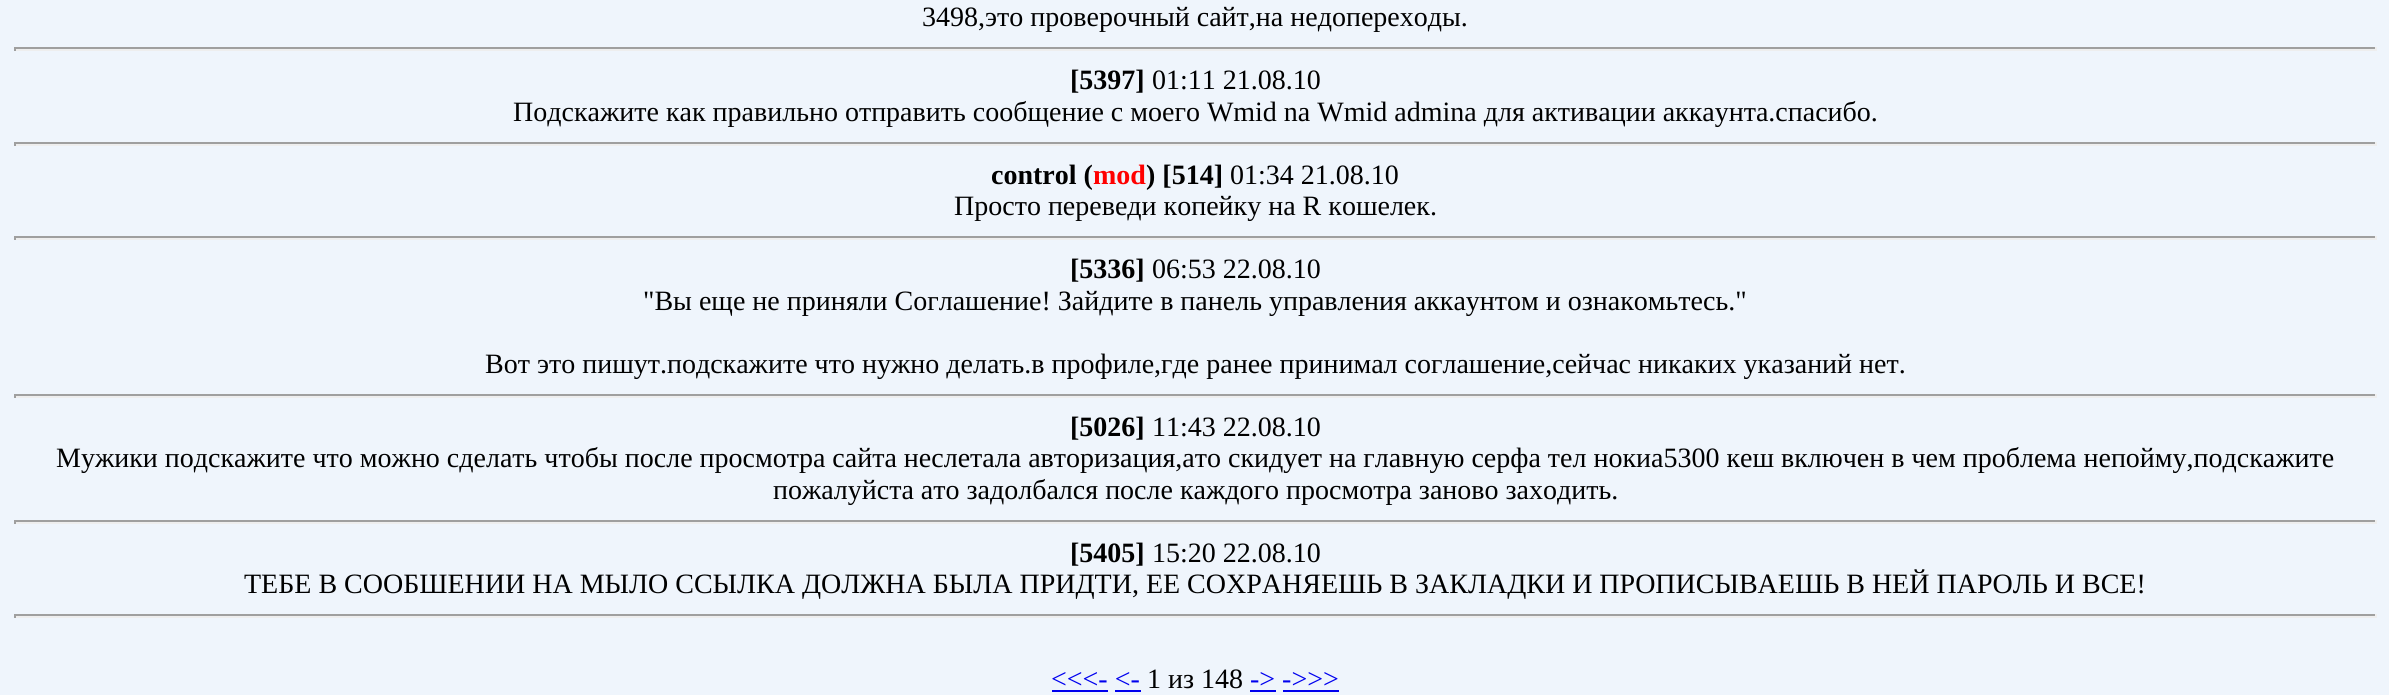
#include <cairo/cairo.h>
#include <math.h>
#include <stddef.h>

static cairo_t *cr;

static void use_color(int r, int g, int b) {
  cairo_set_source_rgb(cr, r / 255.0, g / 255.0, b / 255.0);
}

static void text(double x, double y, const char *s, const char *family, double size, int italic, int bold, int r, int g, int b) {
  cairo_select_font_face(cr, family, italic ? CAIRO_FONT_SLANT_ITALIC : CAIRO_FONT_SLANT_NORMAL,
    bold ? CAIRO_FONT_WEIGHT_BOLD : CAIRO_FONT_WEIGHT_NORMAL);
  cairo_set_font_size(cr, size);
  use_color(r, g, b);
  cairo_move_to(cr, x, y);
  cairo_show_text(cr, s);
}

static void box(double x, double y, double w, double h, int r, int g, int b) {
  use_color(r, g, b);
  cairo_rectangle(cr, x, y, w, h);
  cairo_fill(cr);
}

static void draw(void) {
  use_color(239, 245, 252);
  cairo_paint(cr);
  box(14, 47, 2363, 2, 159, 159, 159);
  box(2375, 47, 2, 4, 238, 238, 238);
  box(14, 49, 2363, 2, 238, 238, 238);
  box(14, 47, 2, 4, 159, 159, 159);
  box(14, 142, 2363, 2, 159, 159, 159);
  box(2375, 142, 2, 4, 238, 238, 238);
  box(14, 144, 2363, 2, 238, 238, 238);
  box(14, 142, 2, 4, 159, 159, 159);
  box(14, 236, 2363, 2, 159, 159, 159);
  box(2375, 236, 2, 4, 238, 238, 238);
  box(14, 238, 2363, 2, 238, 238, 238);
  box(14, 236, 2, 4, 159, 159, 159);
  box(14, 394, 2363, 2, 159, 159, 159);
  box(2375, 394, 2, 4, 238, 238, 238);
  box(14, 396, 2363, 2, 238, 238, 238);
  box(14, 394, 2, 4, 159, 159, 159);
  box(14, 520, 2363, 2, 159, 159, 159);
  box(2375, 520, 2, 4, 238, 238, 238);
  box(14, 522, 2363, 2, 238, 238, 238);
  box(14, 520, 2, 4, 159, 159, 159);
  box(14, 614, 2363, 2, 159, 159, 159);
  box(2375, 614, 2, 4, 238, 238, 238);
  box(14, 616, 2363, 2, 238, 238, 238);
  box(14, 614, 2, 4, 159, 159, 159);
  box(1052, 690, 56, 2, 0, 0, 238);
  box(1250, 690, 26, 2, 0, 0, 238);
  box(1115, 690, 26, 2, 0, 0, 238);
  box(1283, 690, 56, 2, 0, 0, 238);
  text(922, 26, "3498,это проверочный сайт,на недопереходы.", "Liberation Serif", 28, 0, 0, 0, 0, 0);
  text(1070, 89, "[5397]", "Liberation Serif", 28, 0, 1, 0, 0, 0);
  text(1152, 89, "01:11 21.08.10", "Liberation Serif", 28, 0, 0, 0, 0, 0);
  text(513, 121, "Подскажите как правильно отправить сообщение с моего Wmid na Wmid admina для активации аккаунта.спасибо.", "Liberation Serif", 28, 0, 0, 0, 0, 0);
  text(991, 184, "control (", "Liberation Serif", 28, 0, 1, 0, 0, 0);
  text(1093, 184, "mod", "Liberation Serif", 28, 0, 1, 255, 0, 0);
  text(1146, 184, ") [514]", "Liberation Serif", 28, 0, 1, 0, 0, 0);
  text(1230, 184, "01:34 21.08.10", "Liberation Serif", 28, 0, 0, 0, 0, 0);
  text(954, 215, "Просто переведи копейку на R кошелек.", "Liberation Serif", 28, 0, 0, 0, 0, 0);
  text(1070, 278, "[5336]", "Liberation Serif", 28, 0, 1, 0, 0, 0);
  text(1152, 278, "06:53 22.08.10", "Liberation Serif", 28, 0, 0, 0, 0, 0);
  text(643, 310, "\"Вы еще не приняли Соглашение! Зайдите в панель управления аккаунтом и ознакомьтесь.\"", "Liberation Serif", 28, 0, 0, 0, 0, 0);
  text(485, 373, "Вот это пишут.подскажите что нужно делать.в профиле,где ранее принимал соглашение,сейчас никаких указаний нет.", "Liberation Serif", 28, 0, 0, 0, 0, 0);
  text(1070, 436, "[5026]", "Liberation Serif", 28, 0, 1, 0, 0, 0);
  text(1152, 436, "11:43 22.08.10", "Liberation Serif", 28, 0, 0, 0, 0, 0);
  text(56, 467, "Мужики подскажите что можно сделать чтобы после просмотра сайта неслетала авторизация,ато скидует на главную серфа тел нокиа5300 кеш включен в чем проблема непойму,подскажите", "Liberation Serif", 28, 0, 0, 0, 0, 0);
  text(773, 499, "пожалуйста ато задолбался после каждого просмотра заново заходить.", "Liberation Serif", 28, 0, 0, 0, 0, 0);
  text(1070, 562, "[5405]", "Liberation Serif", 28, 0, 1, 0, 0, 0);
  text(1152, 562, "15:20 22.08.10", "Liberation Serif", 28, 0, 0, 0, 0, 0);
  text(244, 593, "ТЕБЕ В СООБШЕНИИ НА МЫЛО ССЫЛКА ДОЛЖНА БЫЛА ПРИДТИ, ЕЕ СОХРАНЯЕШЬ В ЗАКЛАДКИ И ПРОПИСЫВАЕШЬ В НЕЙ ПАРОЛЬ И ВСЕ!", "Liberation Serif", 28, 0, 0, 0, 0, 0);
  text(1051, 688, "<<<- <-", "Liberation Serif", 28, 0, 0, 0, 0, 238);
  text(1147, 688, "1 из 148", "Liberation Serif", 28, 0, 0, 0, 0, 0);
  text(1250, 688, "-> ->>>", "Liberation Serif", 28, 0, 0, 0, 0, 238);
}

int main(void) {
  cairo_surface_t *surface = cairo_image_surface_create(CAIRO_FORMAT_RGB24, 2389, 695);
  cr = cairo_create(surface);
  cairo_font_options_t *options = cairo_font_options_create();
  cairo_font_options_set_hint_metrics(options, CAIRO_HINT_METRICS_OFF);
  cairo_font_options_set_hint_style(options, CAIRO_HINT_STYLE_NONE);
  cairo_set_font_options(cr, options);
  cairo_set_miter_limit(cr, 4);
  draw();
  cairo_surface_write_to_png(surface, "out.png");
  cairo_font_options_destroy(options);
  cairo_destroy(cr);
  cairo_surface_destroy(surface);
  return 0;
}
